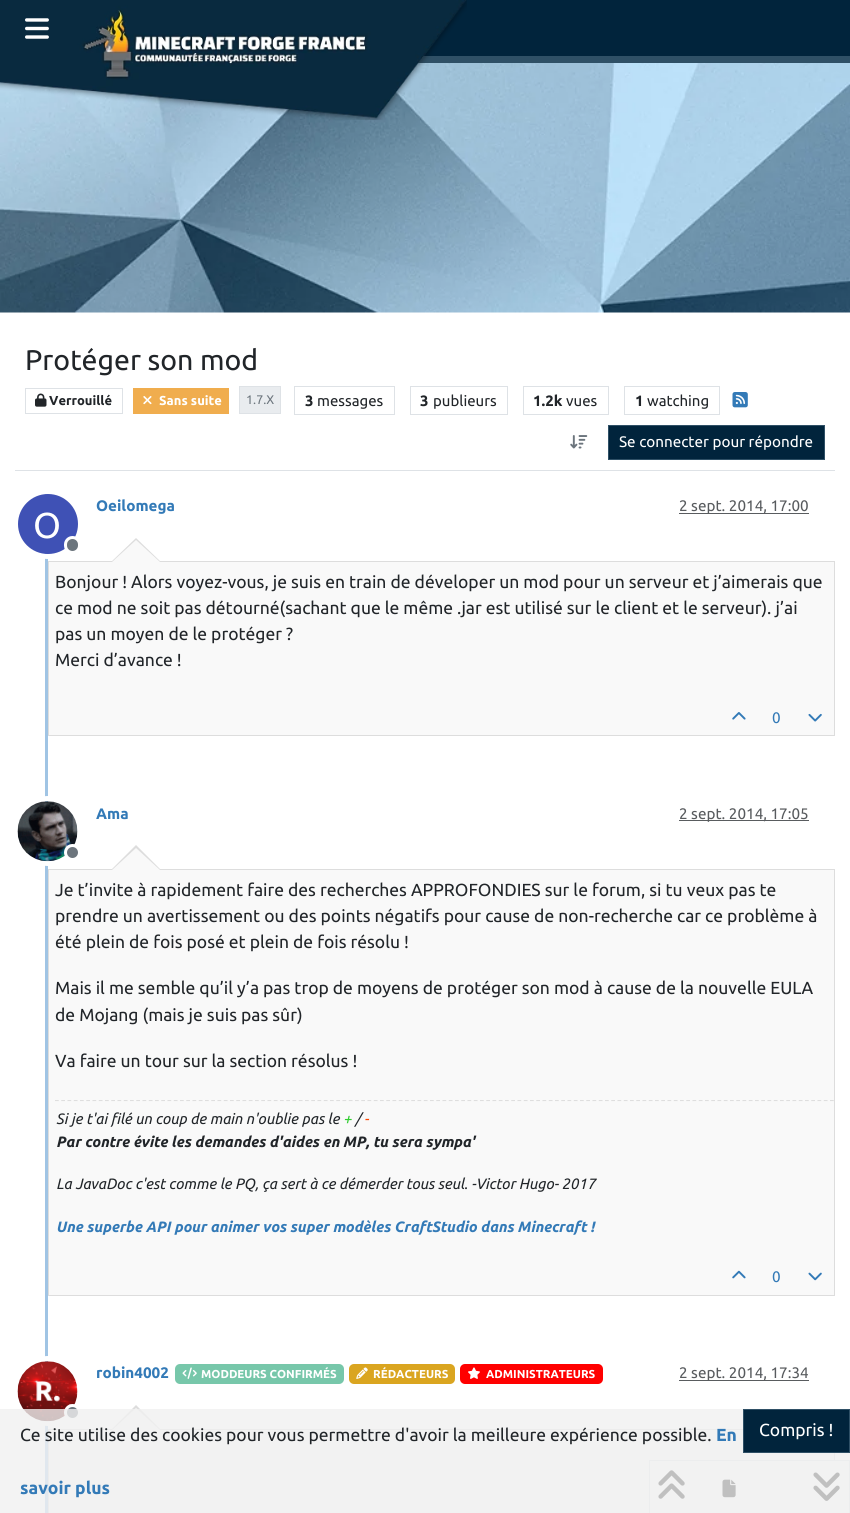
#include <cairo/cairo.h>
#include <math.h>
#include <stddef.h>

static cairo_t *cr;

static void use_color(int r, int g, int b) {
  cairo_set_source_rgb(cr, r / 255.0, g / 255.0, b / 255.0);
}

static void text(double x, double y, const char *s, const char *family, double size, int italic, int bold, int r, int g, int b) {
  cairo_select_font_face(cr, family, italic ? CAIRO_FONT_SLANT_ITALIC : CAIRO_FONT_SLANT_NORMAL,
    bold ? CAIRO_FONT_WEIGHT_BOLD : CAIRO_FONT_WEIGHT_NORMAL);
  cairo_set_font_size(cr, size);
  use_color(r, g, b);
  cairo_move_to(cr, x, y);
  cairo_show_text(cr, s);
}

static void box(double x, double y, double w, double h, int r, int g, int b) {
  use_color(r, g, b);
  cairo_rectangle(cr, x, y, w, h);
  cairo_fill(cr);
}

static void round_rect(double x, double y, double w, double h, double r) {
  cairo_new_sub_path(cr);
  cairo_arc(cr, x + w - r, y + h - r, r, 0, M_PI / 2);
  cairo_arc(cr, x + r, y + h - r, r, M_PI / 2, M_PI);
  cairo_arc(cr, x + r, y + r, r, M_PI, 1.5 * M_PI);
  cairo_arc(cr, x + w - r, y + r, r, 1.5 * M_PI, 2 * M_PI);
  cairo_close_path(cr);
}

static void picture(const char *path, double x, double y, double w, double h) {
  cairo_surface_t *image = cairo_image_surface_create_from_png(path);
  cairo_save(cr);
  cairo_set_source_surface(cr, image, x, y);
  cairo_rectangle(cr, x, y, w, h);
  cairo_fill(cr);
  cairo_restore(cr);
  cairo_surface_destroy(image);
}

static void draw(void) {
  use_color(255, 255, 255);
  cairo_paint(cr);
  box(423, 0, 427, 56, 1, 36, 60);
  box(417, 56, 433, 7, 47, 80, 102);
  picture("img_03.png", 0, 63, 850, 250);
  picture("img_01.png", 0, 0, 467, 120);
  picture("img_02.png", 25, 18, 24, 21);
  box(15, 470, 820, 1, 222, 226, 230);
  cairo_rectangle(cr, 25.5, 388.5, 97, 25);
  cairo_set_line_width(cr, 1);
  cairo_stroke(cr);
  picture("img_04.png", 35, 393, 12, 14);
  box(133, 388, 96, 26, 240, 173, 78);
  picture("img_05.png", 143, 396, 9, 9);
  use_color(233, 236, 239);
  cairo_rectangle(cr, 239.5, 386.5, 41, 27);
  cairo_fill_preserve(cr);
  use_color(222, 226, 230);
  cairo_stroke(cr);
  cairo_rectangle(cr, 294.5, 386.5, 100, 28);
  cairo_stroke(cr);
  cairo_rectangle(cr, 410.5, 386.5, 97, 28);
  cairo_stroke(cr);
  cairo_rectangle(cr, 523.5, 386.5, 85, 28);
  cairo_stroke(cr);
  cairo_rectangle(cr, 624.5, 386.5, 95, 28);
  cairo_stroke(cr);
  picture("img_06.png", 732, 392, 16, 16);
  picture("img_07.png", 570, 435, 18, 14);
  use_color(1, 36, 60);
  cairo_rectangle(cr, 608.5, 425.5, 216, 34);
  cairo_fill_preserve(cr);
  use_color(47, 80, 102);
  cairo_stroke(cr);
  box(45, 491, 3, 1022, 160, 196, 228);
  box(679, 513, 130, 1, 89, 92, 95);
  cairo_arc(cr, 48, 524, 32.5, 0, 2 * M_PI);
  use_color(255, 255, 255);
  cairo_set_line_width(cr, 5);
  cairo_stroke(cr);
  use_color(63, 81, 181);
  cairo_arc(cr, 48, 524, 30, 0, 2 * M_PI);
  cairo_fill(cr);
  use_color(108, 117, 125);
  round_rect(65.5, 537.5, 14, 15, 7);
  cairo_fill_preserve(cr);
  use_color(255, 255, 255);
  cairo_set_line_width(cr, 3);
  cairo_stroke(cr);
  box(48, 561, 787, 1, 221, 221, 221);
  box(834, 561, 1, 139, 221, 221, 221);
  box(48, 561, 1, 139, 221, 221, 221);
  cairo_new_path(cr);
  cairo_move_to(cr, 161, 562);
  cairo_line_to(cr, 111, 562);
  cairo_line_to(cr, 136, 538);
  cairo_close_path(cr);
  cairo_fill(cr);
  use_color(249, 249, 249);
  cairo_new_path(cr);
  cairo_move_to(cr, 160, 562);
  cairo_line_to(cr, 112, 562);
  cairo_line_to(cr, 136, 540);
  cairo_close_path(cr);
  cairo_fill(cr);
  box(49, 562, 785, 173, 249, 249, 249);
  box(834, 700, 1, 36, 221, 221, 221);
  box(48, 735, 787, 1, 221, 221, 221);
  box(48, 700, 1, 36, 221, 221, 221);
  picture("img_08.png", 732, 712, 14, 8);
  picture("img_09.png", 808, 713, 14, 9);
  cairo_arc(cr, 48, 831, 32.5, 0, 2 * M_PI);
  use_color(255, 255, 255);
  cairo_set_line_width(cr, 5);
  cairo_stroke(cr);
  picture("img_10.png", 17, 801, 61, 61);
  use_color(108, 117, 125);
  cairo_arc(cr, 72.5, 852.5, 7, 0, 2 * M_PI);
  cairo_fill_preserve(cr);
  use_color(255, 255, 255);
  cairo_set_line_width(cr, 3);
  cairo_stroke(cr);
  box(679, 820, 130, 1, 89, 92, 95);
  box(49, 1100, 785, 195, 249, 249, 249);
  cairo_new_path(cr);
  cairo_move_to(cr, 55, 1100.5);
  cairo_line_to(cr, 834, 1100.5);
  use_color(222, 222, 222);
  cairo_set_line_width(cr, 1.2);
  cairo_set_dash(cr, (double[]){3.75, 2.5}, 2, 0);
  cairo_stroke(cr);
  box(49, 870, 785, 230, 249, 249, 249);
  box(48, 869, 787, 1, 221, 221, 221);
  box(834, 869, 1, 231, 221, 221, 221);
  box(48, 869, 1, 231, 221, 221, 221);
  cairo_new_path(cr);
  cairo_move_to(cr, 161, 870);
  cairo_line_to(cr, 111, 870);
  cairo_line_to(cr, 136, 845);
  cairo_close_path(cr);
  cairo_fill(cr);
  use_color(249, 249, 249);
  cairo_new_path(cr);
  cairo_move_to(cr, 160, 870);
  cairo_line_to(cr, 112, 870);
  cairo_line_to(cr, 136, 848);
  cairo_close_path(cr);
  cairo_fill(cr);
  box(834, 1100, 1, 196, 221, 221, 221);
  box(48, 1295, 787, 1, 221, 221, 221);
  box(48, 1100, 1, 196, 221, 221, 221);
  picture("img_11.png", 732, 1270, 14, 9);
  picture("img_12.png", 808, 1272, 14, 9);
  cairo_arc(cr, 48, 1391, 32.5, 0, 2 * M_PI);
  use_color(255, 255, 255);
  cairo_set_line_width(cr, 5);
  cairo_set_dash(cr, NULL, 0, 0);
  cairo_stroke(cr);
  picture("img_13.png", 17, 1361, 61, 61);
  use_color(108, 117, 125);
  cairo_arc(cr, 72.5, 1412.5, 7, 0, 2 * M_PI);
  cairo_fill_preserve(cr);
  use_color(255, 255, 255);
  cairo_set_line_width(cr, 3);
  cairo_stroke(cr);
  use_color(119, 199, 170);
  round_rect(175, 1364, 169, 20, 5);
  cairo_fill(cr);
  picture("img_14.png", 182, 1367, 15, 12);
  use_color(218, 165, 32);
  round_rect(349, 1364, 106, 20, 5);
  cairo_fill(cr);
  picture("img_15.png", 356, 1367, 12, 12);
  use_color(255, 0, 0);
  round_rect(460, 1364, 143, 20, 5);
  cairo_fill(cr);
  picture("img_16.png", 468, 1367, 12, 12);
  box(679, 1380, 130, 1, 89, 92, 95);
  box(49, 1430, 785, 83, 249, 249, 249);
  box(48, 1429, 695, 1, 221, 221, 221);
  box(834, 1453, 1, 7, 221, 221, 221);
  box(48, 1429, 1, 84, 221, 221, 221);
  cairo_new_path(cr);
  cairo_move_to(cr, 161, 1430);
  cairo_line_to(cr, 111, 1430);
  cairo_line_to(cr, 136, 1405);
  cairo_close_path(cr);
  cairo_fill(cr);
  use_color(249, 249, 249);
  cairo_new_path(cr);
  cairo_move_to(cr, 160, 1430);
  cairo_line_to(cr, 112, 1430);
  cairo_line_to(cr, 136, 1408);
  cairo_close_path(cr);
  cairo_fill(cr);
  box(834, 1461, 15, 52, 248, 249, 250);
  cairo_rectangle(cr, 649.5, 1460.5, 200, 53);
  use_color(222, 226, 230);
  cairo_set_line_width(cr, 1);
  cairo_stroke(cr);
  picture("img_17.png", 658, 1470, 27, 29);
  picture("img_18.png", 722, 1479, 14, 19);
  picture("img_19.png", 813, 1472, 27, 29);
  cairo_set_source_rgba(cr, 0.941, 0.941, 0.941, 0.8);
  cairo_rectangle(cr, 0, 1409, 850, 104);
  cairo_fill(cr);
  use_color(1, 36, 60);
  cairo_rectangle(cr, 743.5, 1409.5, 106, 43);
  cairo_fill_preserve(cr);
  use_color(47, 80, 102);
  cairo_stroke(cr);
  text(25, 370, "Protéger son mod", "Ubuntu", 28.5, 0, 0, 33, 37, 41);
  text(49, 405, "Verrouillé", "Ubuntu", 13, 0, 1, 33, 37, 41);
  text(159, 405, "Sans suite", "Ubuntu", 13, 0, 1, 255, 255, 255);
  text(246, 404, "1.7.X", "Ubuntu", 12.5, 0, 0, 108, 117, 125);
  text(305, 406, "3", "Ubuntu", 15, 0, 1, 33, 37, 41);
  text(317, 406, "messages", "Ubuntu", 15, 0, 0, 33, 37, 41);
  text(420, 406, "3", "Ubuntu", 15, 0, 1, 33, 37, 41);
  text(433, 406, "publieurs", "Ubuntu", 15, 0, 0, 33, 37, 41);
  text(533, 406, "1.2k", "Ubuntu", 15, 0, 1, 33, 37, 41);
  text(566, 406, "vues", "Ubuntu", 15, 0, 0, 33, 37, 41);
  text(635, 406, "1", "Ubuntu", 15, 0, 1, 33, 37, 41);
  text(647, 406, "watching", "Ubuntu", 15, 0, 0, 33, 37, 41);
  text(619, 447, "Se connecter pour répondre", "Ubuntu", 15.25, 0, 0, 255, 255, 255);
  text(96, 511, "Oeilomega", "Ubuntu", 15.25, 0, 1, 51, 122, 183);
  text(679, 511, "2 sept. 2014, 17:00", "Ubuntu", 15.25, 0, 0, 88, 91, 94);
  text(33, 538, "O", "Ubuntu", 36, 0, 0, 255, 255, 255);
  text(55, 588, "Bonjour ! Alors voyez-vous, je suis en train de déveloper un mod pour un serveur et j’aimerais que", "Ubuntu", 17.5, 0, 0, 33, 37, 41);
  text(55, 614, "ce mod ne soit pas détourné(sachant que le même .jar est utilisé sur le client et le serveur). j’ai", "Ubuntu", 17.5, 0, 0, 33, 37, 41);
  text(55, 640, "pas un moyen de le protéger ?", "Ubuntu", 17.5, 0, 0, 33, 37, 41);
  text(55, 666, "Merci d’avance !", "Ubuntu", 17.5, 0, 0, 33, 37, 41);
  text(772, 723, "0", "Ubuntu", 15.25, 0, 0, 51, 122, 183);
  text(96, 819, "Ama", "Ubuntu", 15.25, 0, 1, 51, 122, 183);
  text(679, 819, "2 sept. 2014, 17:05", "Ubuntu", 15.25, 0, 0, 88, 91, 94);
  text(55, 896, "Je t’invite à rapidement faire des recherches APPROFONDIES sur le forum, si tu veux pas te", "Ubuntu", 17.5, 0, 0, 33, 37, 41);
  text(55, 922, "prendre un avertissement ou des points négatifs pour cause de non-recherche car ce problème à", "Ubuntu", 17.5, 0, 0, 33, 37, 41);
  text(55, 948, "été plein de fois posé et plein de fois résolu !", "Ubuntu", 17.5, 0, 0, 33, 37, 41);
  text(55, 994, "Mais il me semble qu’il y’a pas trop de moyens de protéger son mod à cause de la nouvelle EULA", "Ubuntu", 17.5, 0, 0, 33, 37, 41);
  text(55, 1021, "de Mojang (mais je suis pas sûr)", "Ubuntu", 17.5, 0, 0, 33, 37, 41);
  text(55, 1067, "Va faire un tour sur la section résolus !", "Ubuntu", 17.5, 0, 0, 33, 37, 41);
  text(56, 1124, "Si je t'ai filé un coup de main n'oublie pas le", "Ubuntu", 15, 1, 0, 33, 37, 41);
  text(343, 1124, "+", "Ubuntu", 15, 1, 0, 50, 205, 50);
  text(355, 1124, "/", "Ubuntu", 15, 1, 0, 33, 37, 41);
  text(364, 1124, "-", "Ubuntu", 15, 1, 0, 255, 69, 0);
  text(56, 1147, "Par contre évite les demandes d'aides en MP, tu sera sympa'", "Ubuntu", 15, 1, 1, 33, 37, 41);
  text(56, 1189, "La JavaDoc c'est comme le PQ, ça sert à ce démerder tous seul. -Victor Hugo- 2017", "Ubuntu", 15, 1, 0, 33, 37, 41);
  text(56, 1232, "Une superbe API pour animer vos super modèles CraftStudio dans Minecraft !", "Ubuntu", 15, 1, 1, 51, 122, 183);
  text(772, 1282, "0", "Ubuntu", 15.25, 0, 0, 51, 122, 183);
  text(96, 1378, "robin4002", "Ubuntu", 15.25, 0, 1, 51, 122, 183);
  text(201, 1378, "MODDEURS CONFIRMÉS", "Ubuntu", 11.5, 0, 1, 255, 255, 255);
  text(373, 1378, "RÉDACTEURS", "Ubuntu", 11.5, 0, 1, 255, 255, 255);
  text(486, 1378, "ADMINISTRATEURS", "Ubuntu", 11.5, 0, 1, 255, 255, 255);
  text(679, 1378, "2 sept. 2014, 17:34", "Ubuntu", 15.25, 0, 0, 88, 91, 94);
  text(20, 1441, "Ce site utilise des cookies pour vous permettre d'avoir la meilleure expérience possible.", "Ubuntu", 17.5, 0, 0, 33, 37, 41);
  text(716, 1441, "En", "Ubuntu", 17.5, 0, 1, 51, 122, 183);
  text(759, 1436, "Compris !", "Ubuntu", 17.5, 0, 0, 255, 255, 255);
  text(20, 1494, "savoir plus", "Ubuntu", 17.5, 0, 1, 51, 122, 183);
}

int main(void) {
  cairo_surface_t *surface = cairo_image_surface_create(CAIRO_FORMAT_RGB24, 850, 1513);
  cr = cairo_create(surface);
  cairo_font_options_t *options = cairo_font_options_create();
  cairo_font_options_set_hint_metrics(options, CAIRO_HINT_METRICS_OFF);
  cairo_font_options_set_hint_style(options, CAIRO_HINT_STYLE_NONE);
  cairo_set_font_options(cr, options);
  cairo_set_miter_limit(cr, 4);
  draw();
  cairo_surface_write_to_png(surface, "out.png");
  cairo_font_options_destroy(options);
  cairo_destroy(cr);
  cairo_surface_destroy(surface);
  return 0;
}
